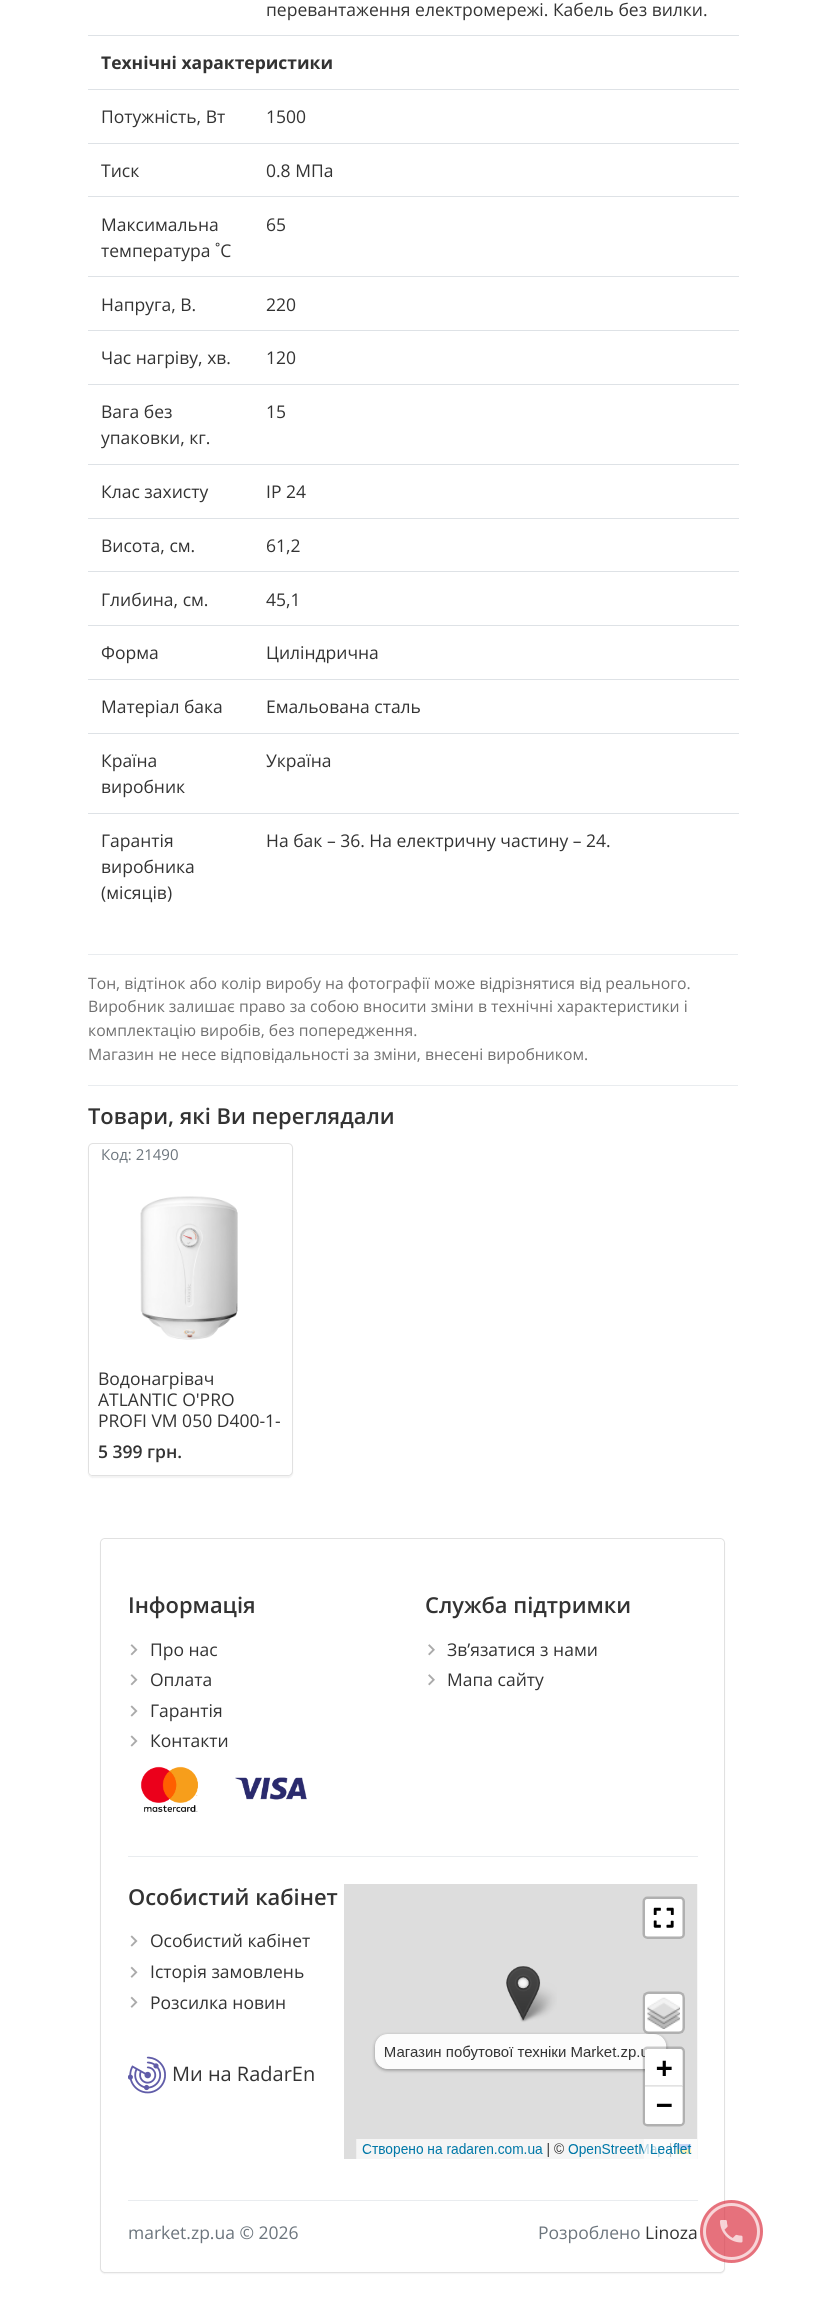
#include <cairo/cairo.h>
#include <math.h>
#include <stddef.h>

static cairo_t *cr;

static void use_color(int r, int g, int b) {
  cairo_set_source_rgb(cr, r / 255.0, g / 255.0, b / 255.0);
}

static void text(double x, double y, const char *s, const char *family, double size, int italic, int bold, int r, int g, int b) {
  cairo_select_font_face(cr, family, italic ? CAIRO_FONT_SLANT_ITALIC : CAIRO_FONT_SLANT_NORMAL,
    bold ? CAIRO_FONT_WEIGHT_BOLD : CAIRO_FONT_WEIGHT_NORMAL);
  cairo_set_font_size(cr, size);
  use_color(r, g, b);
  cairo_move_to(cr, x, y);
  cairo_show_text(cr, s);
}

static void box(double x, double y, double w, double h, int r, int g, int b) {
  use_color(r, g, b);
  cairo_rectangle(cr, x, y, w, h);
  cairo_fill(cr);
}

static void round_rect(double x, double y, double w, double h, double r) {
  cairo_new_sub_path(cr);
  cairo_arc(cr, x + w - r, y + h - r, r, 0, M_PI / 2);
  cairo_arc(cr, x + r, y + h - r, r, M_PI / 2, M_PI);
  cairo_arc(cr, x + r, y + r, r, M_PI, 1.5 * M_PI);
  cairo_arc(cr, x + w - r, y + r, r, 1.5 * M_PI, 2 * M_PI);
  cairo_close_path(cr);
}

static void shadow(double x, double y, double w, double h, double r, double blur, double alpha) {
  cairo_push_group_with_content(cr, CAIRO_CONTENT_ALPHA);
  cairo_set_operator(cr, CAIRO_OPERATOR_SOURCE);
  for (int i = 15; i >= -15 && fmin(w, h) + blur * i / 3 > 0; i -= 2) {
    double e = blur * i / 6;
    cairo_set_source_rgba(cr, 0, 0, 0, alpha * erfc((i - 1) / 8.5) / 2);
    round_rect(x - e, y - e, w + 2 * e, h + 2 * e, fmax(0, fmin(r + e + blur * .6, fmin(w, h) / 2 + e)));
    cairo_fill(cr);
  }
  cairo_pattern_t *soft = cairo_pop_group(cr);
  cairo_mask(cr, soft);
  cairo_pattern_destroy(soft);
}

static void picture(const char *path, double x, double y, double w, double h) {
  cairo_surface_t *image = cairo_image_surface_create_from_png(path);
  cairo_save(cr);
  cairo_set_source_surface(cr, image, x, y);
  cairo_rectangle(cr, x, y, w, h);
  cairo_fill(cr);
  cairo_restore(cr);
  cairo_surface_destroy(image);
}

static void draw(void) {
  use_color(255, 255, 255);
  cairo_paint(cr);
  box(88, 35, 651, 1, 222, 226, 230);
  box(88, 89, 651, 1, 222, 226, 230);
  box(88, 143, 651, 1, 222, 226, 230);
  box(88, 196, 651, 1, 222, 226, 230);
  box(88, 276, 651, 1, 222, 226, 230);
  box(88, 330, 651, 1, 222, 226, 230);
  box(88, 384, 651, 1, 222, 226, 230);
  box(88, 464, 651, 1, 222, 226, 230);
  box(88, 518, 651, 1, 222, 226, 230);
  box(88, 571, 651, 1, 222, 226, 230);
  box(88, 625, 651, 1, 222, 226, 230);
  box(88, 679, 651, 1, 222, 226, 230);
  box(88, 733, 651, 1, 222, 226, 230);
  box(88, 813, 651, 1, 222, 226, 230);
  box(88, 954, 650, 1, 233, 236, 239);
  box(88, 1085, 650, 1, 233, 236, 239);
  use_color(0, 0, 0);
  shadow(88, 1144, 205, 334, 5, 0.5, 0.05);
  use_color(255, 255, 255);
  round_rect(88, 1143, 205, 333, 5);
  cairo_fill(cr);
  round_rect(88.5, 1143.5, 204, 332, 4.5);
  cairo_set_source_rgba(cr, 0, 0, 0, 0.12);
  cairo_set_line_width(cr, 1);
  cairo_stroke(cr);
  picture("img_01.png", 140, 1196, 98, 144);
  use_color(255, 255, 255);
  cairo_new_path(cr);
  cairo_move_to(cr, 89, 1369);
  cairo_line_to(cr, 291, 1369);
  cairo_line_to(cr, 291, 1472);
  cairo_curve_to(cr, 291, 1473.5, 289.5, 1475, 288, 1475);
  cairo_line_to(cr, 92, 1475);
  cairo_curve_to(cr, 90.5, 1475, 89, 1473.5, 89, 1472);
  cairo_close_path(cr);
  cairo_fill(cr);
  use_color(0, 0, 0);
  shadow(100, 1539, 625, 735, 5, 0.5, 0.05);
  use_color(255, 255, 255);
  round_rect(100, 1538, 625, 735, 5);
  cairo_fill(cr);
  round_rect(100.5, 1538.5, 624, 734, 4.5);
  cairo_set_source_rgba(cr, 0, 0, 0, 0.12);
  cairo_stroke(cr);
  use_color(255, 255, 255);
  round_rect(101, 1539, 623, 732, 5);
  cairo_fill(cr);
  picture("img_02.png", 130, 1644, 8, 12);
  picture("img_02.png", 130, 1674, 8, 12);
  picture("img_03.png", 130, 1705, 8, 12);
  picture("img_03.png", 130, 1735, 8, 12);
  picture("img_04.png", 140, 1766, 167, 46);
  picture("img_05.png", 428, 1644, 7, 12);
  picture("img_05.png", 428, 1674, 7, 12);
  box(128, 1856, 570, 1, 233, 236, 239);
  picture("img_03.png", 130, 1935, 8, 12);
  picture("img_06.png", 130, 1966, 8, 12);
  picture("img_06.png", 130, 1996, 8, 12);
  picture("img_07.png", 128, 2056, 38, 38);
  picture("img_08.png", 344, 1884, 354, 275);
  box(128, 2200, 570, 1, 233, 236, 239);
  cairo_set_source_rgba(cr, 0.863, 0.208, 0.271, 0.7);
  cairo_arc(cr, 731.5, 2231.5, 31.5, 0, 2 * M_PI);
  cairo_fill(cr);
  cairo_arc(cr, 731.5, 2231.5, 27, 0, 2 * M_PI);
  cairo_set_source_rgba(cr, 1, 1, 1, 0.7);
  cairo_set_line_width(cr, 3);
  cairo_stroke(cr);
  picture("img_09.png", 720, 2220, 23, 23);
  text(266, 16, "перевантаження електромережі. Кабель без вилки.", "Open Sans", 17.5, 0, 0, 51, 51, 51);
  text(101, 69, "Технічні характеристики", "Open Sans", 17.5, 0, 1, 51, 51, 51);
  text(101, 123, "Потужність, Вт", "Open Sans", 17.5, 0, 0, 51, 51, 51);
  text(266, 123, "1500", "Open Sans", 17.5, 0, 0, 51, 51, 51);
  text(101, 177, "Тиск", "Open Sans", 17.5, 0, 0, 51, 51, 51);
  text(266, 177, "0.8 МПа", "Open Sans", 17.5, 0, 0, 51, 51, 51);
  text(101, 231, "Максимальна", "Open Sans", 17.5, 0, 0, 51, 51, 51);
  text(101, 257, "температура ˚С", "Open Sans", 17.5, 0, 0, 51, 51, 51);
  text(266, 231, "65", "Open Sans", 17.5, 0, 0, 51, 51, 51);
  text(101, 311, "Напруга, В.", "Open Sans", 17.5, 0, 0, 51, 51, 51);
  text(266, 311, "220", "Open Sans", 17.5, 0, 0, 51, 51, 51);
  text(101, 364, "Час нагріву, хв.", "Open Sans", 17.5, 0, 0, 51, 51, 51);
  text(266, 364, "120", "Open Sans", 17.5, 0, 0, 51, 51, 51);
  text(101, 418, "Вага без", "Open Sans", 17.5, 0, 0, 51, 51, 51);
  text(101, 444, "упаковки, кг.", "Open Sans", 17.5, 0, 0, 51, 51, 51);
  text(266, 418, "15", "Open Sans", 17.5, 0, 0, 51, 51, 51);
  text(101, 498, "Клас захисту", "Open Sans", 17.5, 0, 0, 51, 51, 51);
  text(266, 498, "IP 24", "Open Sans", 17.5, 0, 0, 51, 51, 51);
  text(101, 552, "Висота, см.", "Open Sans", 17.5, 0, 0, 51, 51, 51);
  text(266, 552, "61,2", "Open Sans", 17.5, 0, 0, 51, 51, 51);
  text(101, 606, "Глибина, см.", "Open Sans", 17.5, 0, 0, 51, 51, 51);
  text(266, 606, "45,1", "Open Sans", 17.5, 0, 0, 51, 51, 51);
  text(101, 659, "Форма", "Open Sans", 17.5, 0, 0, 51, 51, 51);
  text(266, 659, "Циліндрична", "Open Sans", 17.5, 0, 0, 51, 51, 51);
  text(101, 713, "Матеріал бака", "Open Sans", 17.5, 0, 0, 51, 51, 51);
  text(266, 713, "Емальована сталь", "Open Sans", 17.5, 0, 0, 51, 51, 51);
  text(101, 767, "Країна", "Open Sans", 17.5, 0, 0, 51, 51, 51);
  text(101, 793, "виробник", "Open Sans", 17.5, 0, 0, 51, 51, 51);
  text(266, 767, "Україна", "Open Sans", 17.5, 0, 0, 51, 51, 51);
  text(101, 847, "Гарантія", "Open Sans", 17.5, 0, 0, 51, 51, 51);
  text(101, 873, "виробника", "Open Sans", 17.5, 0, 0, 51, 51, 51);
  text(101, 899, "(місяців)", "Open Sans", 17.5, 0, 0, 51, 51, 51);
  text(266, 847, "На бак – 36. На електричну частину – 24.", "Open Sans", 17.5, 0, 0, 51, 51, 51);
  text(88, 989, "Тон, відтінок або колір виробу на фотографії може відрізнятися від реального.", "Open Sans", 15.75, 0, 0, 112, 112, 112);
  text(88, 1012, "Виробник залишає право за собою вносити зміни в технічні характеристики і", "Open Sans", 15.75, 0, 0, 112, 112, 112);
  text(88, 1036, "комплектацію виробів, без попередження.", "Open Sans", 15.75, 0, 0, 112, 112, 112);
  text(88, 1060, "Магазин не несе відповідальності за зміни, внесені виробником.", "Open Sans", 15.75, 0, 0, 112, 112, 112);
  text(88, 1124, "Товари, які Ви переглядали", "Open Sans SemiBold", 21.9, 0, 0, 51, 51, 51);
  text(101, 1160, "Код: 21490", "Open Sans", 15, 0, 0, 108, 117, 125);
  text(98, 1385, "Водонагрівач", "Open Sans", 17.5, 0, 0, 51, 51, 51);
  text(98, 1406, "ATLANTIC O'PRO", "Open Sans", 17.5, 0, 0, 51, 51, 51);
  text(98, 1427, "PROFI VM 050 D400-1-", "Open Sans", 17.5, 0, 0, 51, 51, 51);
  text(98, 1458, "5 399 грн.", "Open Sans SemiBold", 17.5, 0, 0, 51, 51, 51);
  text(128, 1613, "Інформація", "Open Sans SemiBold", 21.9, 0, 0, 51, 51, 51);
  text(150, 1656, "Про нас", "Open Sans", 17.5, 0, 0, 51, 51, 51);
  text(150, 1686, "Оплата", "Open Sans", 17.5, 0, 0, 51, 51, 51);
  text(150, 1717, "Гарантія", "Open Sans", 17.5, 0, 0, 51, 51, 51);
  text(150, 1747, "Контакти", "Open Sans", 17.5, 0, 0, 51, 51, 51);
  text(425, 1613, "Служба підтримки", "Open Sans SemiBold", 21.9, 0, 0, 51, 51, 51);
  text(447, 1656, "Зв’язатися з нами", "Open Sans", 17.5, 0, 0, 51, 51, 51);
  text(447, 1686, "Мапа сайту", "Open Sans", 17.5, 0, 0, 51, 51, 51);
  text(128, 1905, "Особистий кабінет", "Open Sans SemiBold", 21.9, 0, 0, 51, 51, 51);
  text(150, 1947, "Особистий кабінет", "Open Sans", 17.5, 0, 0, 51, 51, 51);
  text(150, 1978, "Історія замовлень", "Open Sans", 17.5, 0, 0, 51, 51, 51);
  text(150, 2009, "Розсилка новин", "Open Sans", 17.5, 0, 0, 51, 51, 51);
  text(172, 2081, "Ми на RadarEn", "Open Sans", 20, 0, 0, 51, 51, 51);
  text(128, 2239, "market.zp.ua © 2026", "Open Sans", 17.5, 0, 0, 108, 117, 125);
  text(538, 2239, "Розроблено", "Open Sans", 17.5, 0, 0, 108, 117, 125);
  text(645, 2239, "Lіnoza", "Open Sans", 17.5, 0, 0, 51, 51, 51);
}

int main(void) {
  cairo_surface_t *surface = cairo_image_surface_create(CAIRO_FORMAT_RGB24, 825, 2324);
  cr = cairo_create(surface);
  cairo_font_options_t *options = cairo_font_options_create();
  cairo_font_options_set_hint_metrics(options, CAIRO_HINT_METRICS_OFF);
  cairo_font_options_set_hint_style(options, CAIRO_HINT_STYLE_NONE);
  cairo_set_font_options(cr, options);
  cairo_set_miter_limit(cr, 4);
  draw();
  cairo_surface_write_to_png(surface, "out.png");
  cairo_font_options_destroy(options);
  cairo_destroy(cr);
  cairo_surface_destroy(surface);
  return 0;
}
